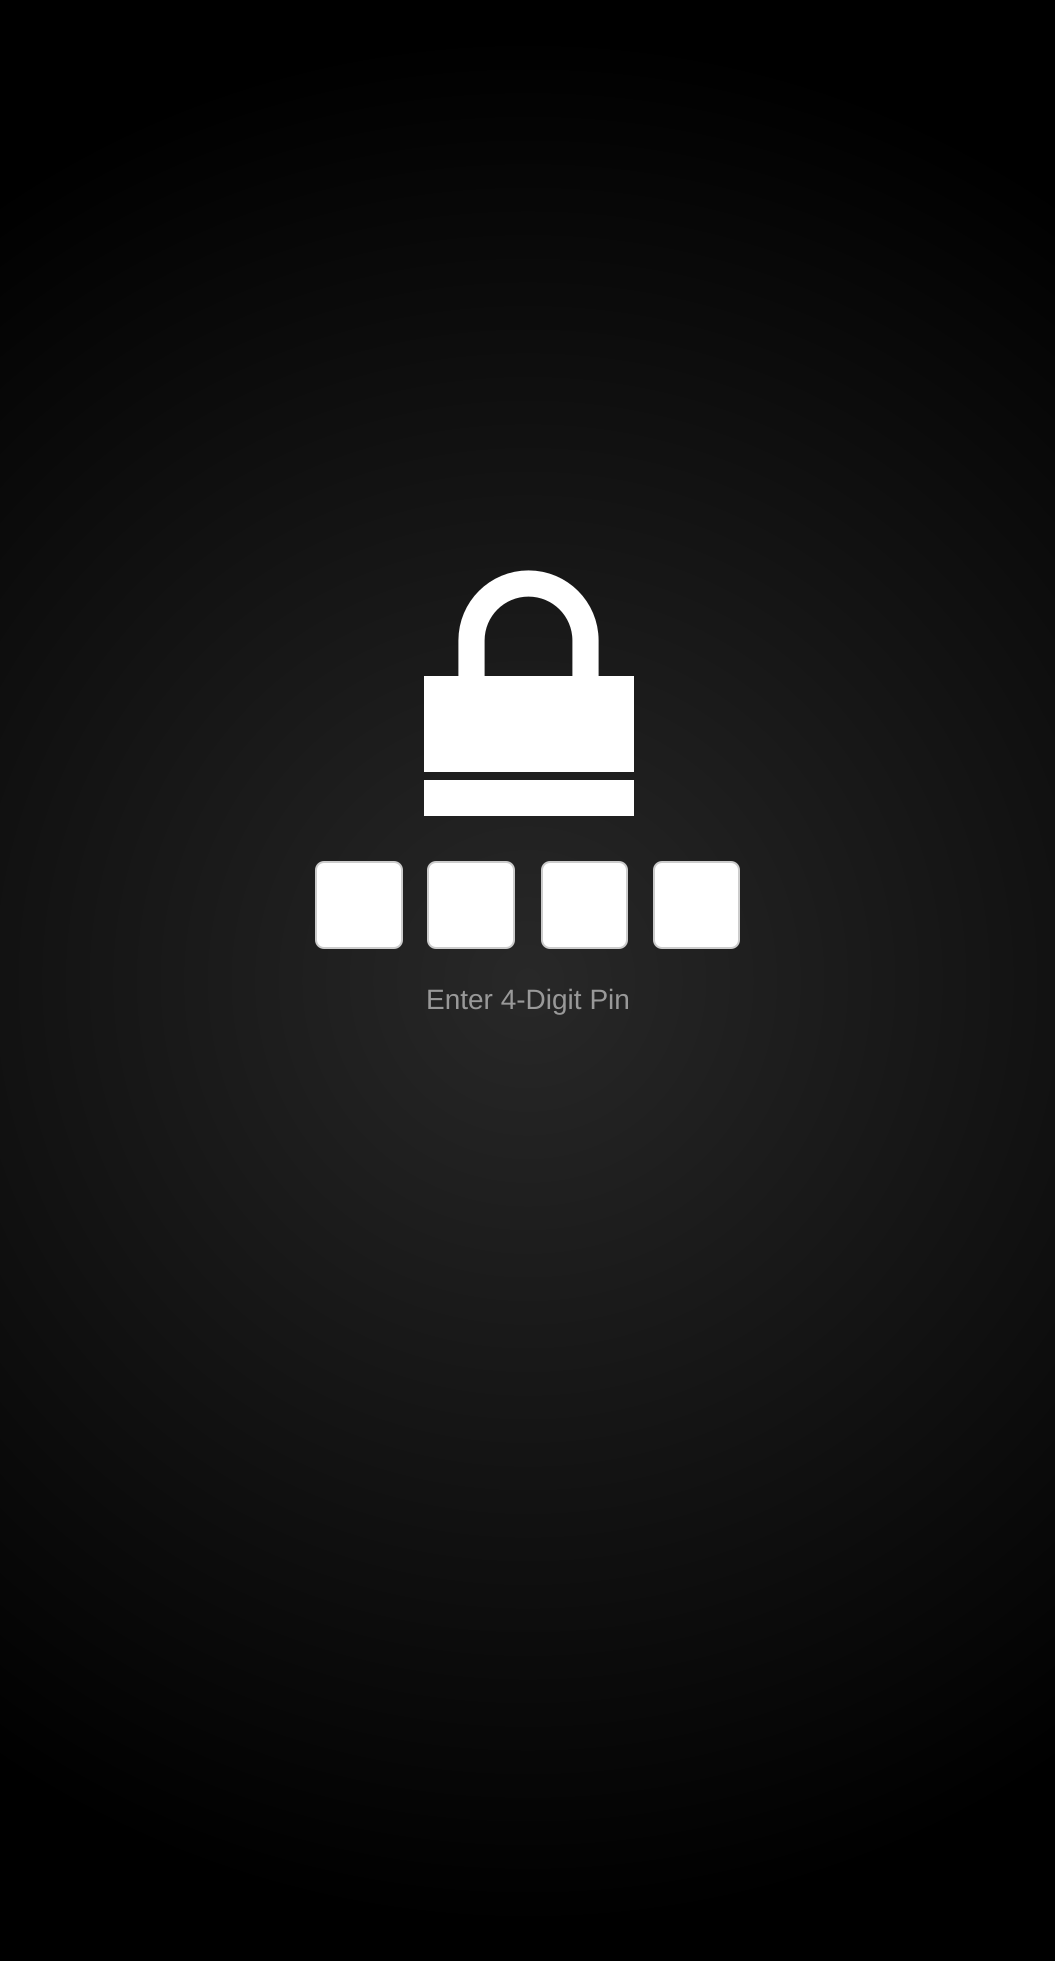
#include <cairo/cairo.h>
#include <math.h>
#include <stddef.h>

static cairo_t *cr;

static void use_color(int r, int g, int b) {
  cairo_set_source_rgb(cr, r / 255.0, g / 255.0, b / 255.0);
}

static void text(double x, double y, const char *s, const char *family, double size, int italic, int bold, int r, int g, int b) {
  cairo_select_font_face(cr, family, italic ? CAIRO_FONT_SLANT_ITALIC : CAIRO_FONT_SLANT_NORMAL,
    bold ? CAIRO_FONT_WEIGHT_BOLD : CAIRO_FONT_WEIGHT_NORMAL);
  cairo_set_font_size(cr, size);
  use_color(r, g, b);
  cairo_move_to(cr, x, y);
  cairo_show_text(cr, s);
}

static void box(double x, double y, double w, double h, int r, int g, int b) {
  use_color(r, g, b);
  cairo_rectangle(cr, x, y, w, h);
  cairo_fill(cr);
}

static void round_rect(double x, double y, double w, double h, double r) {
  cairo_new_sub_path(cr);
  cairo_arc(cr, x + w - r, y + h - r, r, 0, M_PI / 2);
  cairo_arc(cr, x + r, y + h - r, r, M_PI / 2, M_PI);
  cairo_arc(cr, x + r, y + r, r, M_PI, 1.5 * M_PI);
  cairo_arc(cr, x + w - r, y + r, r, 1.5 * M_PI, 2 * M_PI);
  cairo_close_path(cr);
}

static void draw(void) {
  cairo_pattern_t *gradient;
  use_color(255, 255, 255);
  cairo_paint(cr);
  gradient = cairo_pattern_create_radial(528, 981, 0, 528, 981, 1114);
  cairo_pattern_add_color_stop_rgba(gradient, 0, 0.157, 0.157, 0.157, 1);
  cairo_pattern_add_color_stop_rgba(gradient, 0.85, 0, 0, 0, 1);
  cairo_set_source(cr, gradient);
  cairo_pattern_destroy(gradient);
  cairo_rectangle(cr, 0, 0, 1055, 1961);
  cairo_fill(cr);
  cairo_new_path(cr);
  cairo_move_to(cr, 471.5, 693);
  cairo_line_to(cr, 471.5, 640.5);
  cairo_curve_to(cr, 471.5, 609, 497, 583.5, 528.5, 583.5);
  cairo_curve_to(cr, 560, 583.5, 585.5, 609, 585.5, 640.5);
  cairo_line_to(cr, 585.5, 693);
  use_color(255, 255, 255);
  cairo_set_line_width(cr, 26.2);
  cairo_stroke(cr);
  box(424, 676, 210, 96, 255, 255, 255);
  box(424, 780, 210, 36, 255, 255, 255);
  round_rect(316, 862, 86, 86, 8);
  cairo_fill_preserve(cr);
  use_color(204, 204, 204);
  cairo_set_line_width(cr, 2);
  cairo_stroke(cr);
  use_color(255, 255, 255);
  round_rect(428, 862, 86, 86, 8);
  cairo_fill_preserve(cr);
  use_color(204, 204, 204);
  cairo_stroke(cr);
  use_color(255, 255, 255);
  round_rect(542, 862, 85, 86, 8);
  cairo_fill_preserve(cr);
  use_color(204, 204, 204);
  cairo_stroke(cr);
  use_color(255, 255, 255);
  round_rect(654, 862, 85, 86, 8);
  cairo_fill_preserve(cr);
  use_color(204, 204, 204);
  cairo_stroke(cr);
  text(426, 1009, "Enter 4-Digit Pin", "Liberation Sans", 28, 0, 0, 153, 153, 153);
}

int main(void) {
  cairo_surface_t *surface = cairo_image_surface_create(CAIRO_FORMAT_RGB24, 1055, 1961);
  cr = cairo_create(surface);
  cairo_font_options_t *options = cairo_font_options_create();
  cairo_font_options_set_hint_metrics(options, CAIRO_HINT_METRICS_OFF);
  cairo_font_options_set_hint_style(options, CAIRO_HINT_STYLE_NONE);
  cairo_set_font_options(cr, options);
  cairo_set_miter_limit(cr, 4);
  draw();
  cairo_surface_write_to_png(surface, "out.png");
  cairo_font_options_destroy(options);
  cairo_destroy(cr);
  cairo_surface_destroy(surface);
  return 0;
}
